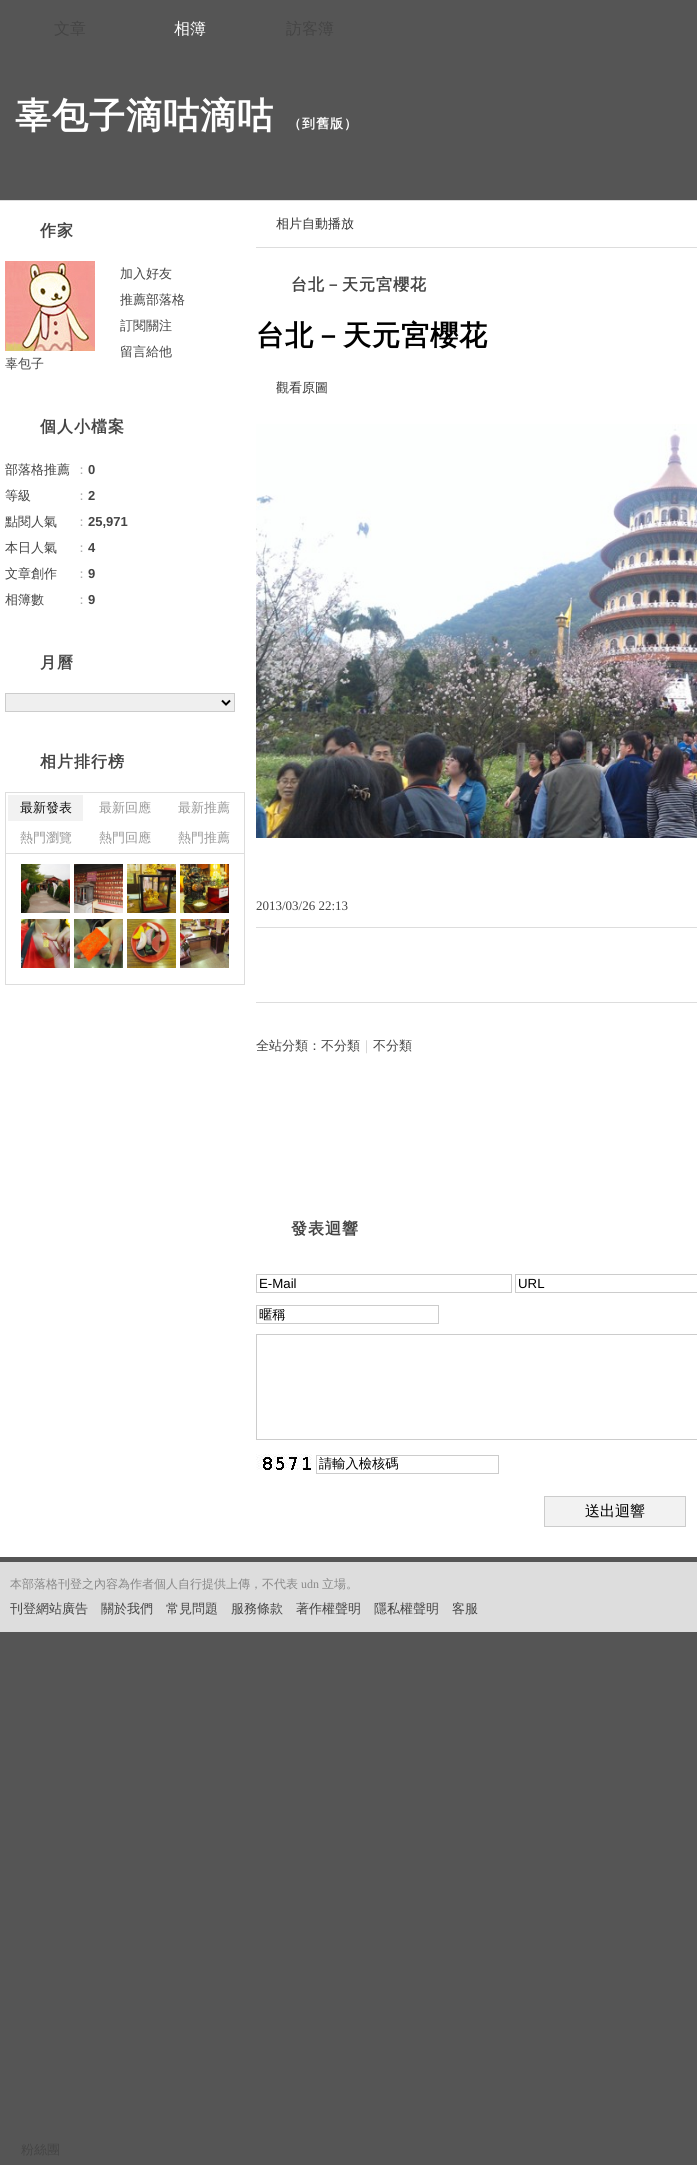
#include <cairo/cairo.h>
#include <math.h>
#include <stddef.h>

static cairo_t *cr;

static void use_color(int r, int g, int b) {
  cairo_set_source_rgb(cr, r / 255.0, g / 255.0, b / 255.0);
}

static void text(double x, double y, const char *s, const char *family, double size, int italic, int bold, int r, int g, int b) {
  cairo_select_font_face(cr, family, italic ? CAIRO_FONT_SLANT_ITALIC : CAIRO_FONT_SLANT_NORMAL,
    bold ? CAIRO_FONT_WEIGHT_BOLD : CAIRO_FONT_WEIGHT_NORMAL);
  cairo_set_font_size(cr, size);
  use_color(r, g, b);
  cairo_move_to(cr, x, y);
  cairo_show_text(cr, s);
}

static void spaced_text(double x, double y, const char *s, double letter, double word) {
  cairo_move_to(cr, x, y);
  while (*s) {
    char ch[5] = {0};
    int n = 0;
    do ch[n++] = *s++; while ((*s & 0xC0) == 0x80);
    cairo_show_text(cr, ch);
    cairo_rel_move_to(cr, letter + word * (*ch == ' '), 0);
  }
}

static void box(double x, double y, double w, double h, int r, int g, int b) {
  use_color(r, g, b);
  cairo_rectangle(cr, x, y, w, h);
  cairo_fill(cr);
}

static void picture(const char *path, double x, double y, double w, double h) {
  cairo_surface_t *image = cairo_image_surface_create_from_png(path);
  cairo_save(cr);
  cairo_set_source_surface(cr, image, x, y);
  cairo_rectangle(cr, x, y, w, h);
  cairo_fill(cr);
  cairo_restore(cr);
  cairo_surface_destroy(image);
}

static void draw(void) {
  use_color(85, 85, 85);
  cairo_paint(cr);
  box(0, 200, 697, 1, 221, 221, 221);
  box(0, 201, 697, 1356, 255, 255, 255);
  picture("img_01.png", 5, 261, 90, 90);
  use_color(239, 239, 239);
  cairo_rectangle(cr, 5.5, 693.5, 229, 18);
  cairo_fill_preserve(cr);
  use_color(204, 204, 204);
  cairo_set_line_width(cr, 1);
  cairo_stroke(cr);
  cairo_new_path(cr);
  cairo_move_to(cr, 222, 700.5);
  cairo_line_to(cr, 226, 704.5);
  cairo_line_to(cr, 230, 700.5);
  use_color(0, 0, 0);
  cairo_set_line_width(cr, 2);
  cairo_stroke(cr);
  cairo_rectangle(cr, 5.5, 792.5, 239, 61);
  use_color(221, 221, 221);
  cairo_set_line_width(cr, 1);
  cairo_stroke(cr);
  box(8, 795, 75, 26, 242, 242, 242);
  box(244, 854, 1, 131, 221, 221, 221);
  box(5, 984, 240, 1, 221, 221, 221);
  box(5, 854, 1, 131, 221, 221, 221);
  picture("img_02.png", 21, 864, 49, 49);
  picture("img_03.png", 74, 864, 49, 49);
  picture("img_04.png", 127, 864, 49, 49);
  picture("img_05.png", 180, 864, 49, 49);
  picture("img_06.png", 21, 919, 49, 49);
  picture("img_07.png", 74, 919, 49, 49);
  picture("img_08.png", 127, 919, 49, 49);
  picture("img_09.png", 180, 919, 49, 49);
  box(256, 247, 441, 1, 221, 221, 221);
  picture("img_10.png", 256, 424, 441, 414);
  box(256, 927, 441, 1, 221, 221, 221);
  box(256, 1002, 441, 1, 221, 221, 221);
  cairo_rectangle(cr, 256.5, 1274.5, 255, 18);
  use_color(204, 204, 204);
  cairo_stroke(cr);
  cairo_rectangle(cr, 515.5, 1274.5, 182, 18);
  cairo_stroke(cr);
  cairo_rectangle(cr, 256.5, 1305.5, 182, 18);
  cairo_stroke(cr);
  cairo_rectangle(cr, 256.5, 1334.5, 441, 105);
  cairo_stroke(cr);
  picture("img_11.png", 256, 1454, 56, 16);
  cairo_rectangle(cr, 316.5, 1455.5, 182, 18);
  cairo_stroke(cr);
  use_color(242, 242, 242);
  cairo_rectangle(cr, 544.5, 1496.5, 141, 30);
  cairo_fill_preserve(cr);
  use_color(204, 204, 204);
  cairo_stroke(cr);
  box(0, 1562, 697, 70, 221, 221, 221);
  text(54, 34, "文章", "WenQuanYi Zen Hei Medium", 16, 0, 0, 68, 68, 68);
  text(174, 34, "相簿", "WenQuanYi Zen Hei Medium", 16, 0, 0, 255, 255, 255);
  text(286, 34, "訪客簿", "WenQuanYi Zen Hei Medium", 16, 0, 0, 68, 68, 68);
  cairo_select_font_face(cr, "WenQuanYi Zen Hei", CAIRO_FONT_SLANT_NORMAL, CAIRO_FONT_WEIGHT_BOLD);
  cairo_set_font_size(cr, 36);
  use_color(255, 255, 255);
  spaced_text(15, 128, "辜包子滴咕滴咕", 1, 0);
  cairo_set_font_size(cr, 13);
  spaced_text(288, 128, "（到舊版）", 1, 0);
  cairo_set_font_size(cr, 16);
  use_color(68, 68, 68);
  spaced_text(40, 236, "作家", 1, 0);
  text(120, 278, "加入好友", "WenQuanYi Zen Hei Medium", 13, 0, 0, 68, 68, 68);
  text(120, 304, "推薦部落格", "WenQuanYi Zen Hei Medium", 13, 0, 0, 68, 68, 68);
  text(120, 330, "訂閱關注", "WenQuanYi Zen Hei Medium", 13, 0, 0, 68, 68, 68);
  text(120, 356, "留言給他", "WenQuanYi Zen Hei Medium", 13, 0, 0, 68, 68, 68);
  text(5, 368, "辜包子", "WenQuanYi Zen Hei Medium", 13, 0, 0, 68, 68, 68);
  cairo_select_font_face(cr, "WenQuanYi Zen Hei", CAIRO_FONT_SLANT_NORMAL, CAIRO_FONT_WEIGHT_BOLD);
  cairo_set_font_size(cr, 16);
  spaced_text(40, 432, "個人小檔案", 1, 0);
  text(5, 474, "部落格推薦", "WenQuanYi Zen Hei Medium", 13, 0, 0, 68, 68, 68);
  text(75, 474, "：", "WenQuanYi Zen Hei Medium", 13, 0, 0, 170, 170, 170);
  text(88, 474, "0", "Liberation Sans", 13, 0, 1, 68, 68, 68);
  text(5, 500, "等級", "WenQuanYi Zen Hei Medium", 13, 0, 0, 68, 68, 68);
  text(75, 500, "：", "WenQuanYi Zen Hei Medium", 13, 0, 0, 170, 170, 170);
  text(88, 500, "2", "Liberation Sans", 13, 0, 1, 68, 68, 68);
  text(5, 526, "點閱人氣", "WenQuanYi Zen Hei Medium", 13, 0, 0, 68, 68, 68);
  text(75, 526, "：", "WenQuanYi Zen Hei Medium", 13, 0, 0, 170, 170, 170);
  text(88, 526, "25,971", "Liberation Sans", 13, 0, 1, 68, 68, 68);
  text(5, 552, "本日人氣", "WenQuanYi Zen Hei Medium", 13, 0, 0, 68, 68, 68);
  text(75, 552, "：", "WenQuanYi Zen Hei Medium", 13, 0, 0, 170, 170, 170);
  text(88, 552, "4", "Liberation Sans", 13, 0, 1, 68, 68, 68);
  text(5, 578, "文章創作", "WenQuanYi Zen Hei Medium", 13, 0, 0, 68, 68, 68);
  text(75, 578, "：", "WenQuanYi Zen Hei Medium", 13, 0, 0, 170, 170, 170);
  text(88, 578, "9", "Liberation Sans", 13, 0, 1, 68, 68, 68);
  text(5, 604, "相簿數", "WenQuanYi Zen Hei Medium", 13, 0, 0, 68, 68, 68);
  text(75, 604, "：", "WenQuanYi Zen Hei Medium", 13, 0, 0, 170, 170, 170);
  text(88, 604, "9", "Liberation Sans", 13, 0, 1, 68, 68, 68);
  cairo_select_font_face(cr, "WenQuanYi Zen Hei", CAIRO_FONT_SLANT_NORMAL, CAIRO_FONT_WEIGHT_BOLD);
  cairo_set_font_size(cr, 16);
  spaced_text(40, 668, "月曆", 1, 0);
  spaced_text(40, 767, "相片排行榜", 1, 0);
  text(20, 812, "最新發表", "WenQuanYi Zen Hei Medium", 13, 0, 0, 17, 17, 17);
  text(99, 812, "最新回應", "WenQuanYi Zen Hei Medium", 13, 0, 0, 153, 153, 153);
  text(178, 812, "最新推薦", "WenQuanYi Zen Hei Medium", 13, 0, 0, 153, 153, 153);
  text(20, 842, "熱門瀏覽", "WenQuanYi Zen Hei Medium", 13, 0, 0, 153, 153, 153);
  text(99, 842, "熱門回應", "WenQuanYi Zen Hei Medium", 13, 0, 0, 153, 153, 153);
  text(178, 842, "熱門推薦", "WenQuanYi Zen Hei Medium", 13, 0, 0, 153, 153, 153);
  text(276, 228, "相片自動播放", "WenQuanYi Zen Hei Medium", 13, 0, 0, 51, 51, 51);
  cairo_select_font_face(cr, "WenQuanYi Zen Hei", CAIRO_FONT_SLANT_NORMAL, CAIRO_FONT_WEIGHT_BOLD);
  cairo_set_font_size(cr, 16);
  use_color(68, 68, 68);
  spaced_text(291, 290, "台北－天元宮櫻花", 1, 0);
  cairo_set_font_size(cr, 28);
  use_color(0, 0, 0);
  spaced_text(256, 345, "台北－天元宮櫻花", 1, 0);
  text(276, 392, "觀看原圖", "WenQuanYi Zen Hei Medium", 13, 0, 0, 51, 51, 51);
  text(256, 910, "2013/03/26 22:13", "Liberation Serif", 13, 0, 0, 68, 68, 68);
  text(256, 1050, "全站分類：不分類", "WenQuanYi Zen Hei Medium", 13, 0, 0, 68, 68, 68);
  text(360, 1050, "｜", "WenQuanYi Zen Hei Medium", 13, 0, 0, 204, 204, 204);
  text(373, 1050, "不分類", "WenQuanYi Zen Hei Medium", 13, 0, 0, 68, 68, 68);
  cairo_select_font_face(cr, "WenQuanYi Zen Hei", CAIRO_FONT_SLANT_NORMAL, CAIRO_FONT_WEIGHT_BOLD);
  cairo_set_font_size(cr, 16);
  spaced_text(291, 1234, "發表迴響", 1, 0);
  text(259, 1288, "E-Mail", "Liberation Sans", 13.25, 0, 0, 0, 0, 0);
  text(518, 1288, "URL", "Liberation Sans", 13.25, 0, 0, 0, 0, 0);
  text(259, 1319, "暱稱", "WenQuanYi Zen Hei Medium", 13.25, 0, 0, 0, 0, 0);
  text(319, 1468, "請輸入檢核碼", "WenQuanYi Zen Hei Medium", 13.25, 0, 0, 0, 0, 0);
  text(585, 1516, "送出迴響", "WenQuanYi Zen Hei Medium", 15, 0, 0, 0, 0, 0);
  text(10, 1588, "本部落格刊登之內容為作者個人自行提供上傳，不代表", "WenQuanYi Zen Hei Medium", 12, 0, 0, 136, 136, 136);
  text(301, 1588, "udn", "Liberation Serif", 12, 0, 0, 136, 136, 136);
  text(322, 1588, "立場。", "WenQuanYi Zen Hei Medium", 12, 0, 0, 136, 136, 136);
  text(10, 1613, "刊登網站廣告", "WenQuanYi Zen Hei Medium", 13, 0, 0, 68, 68, 68);
  text(101, 1613, "關於我們", "WenQuanYi Zen Hei Medium", 13, 0, 0, 68, 68, 68);
  text(166, 1613, "常見問題", "WenQuanYi Zen Hei Medium", 13, 0, 0, 68, 68, 68);
  text(231, 1613, "服務條款", "WenQuanYi Zen Hei Medium", 13, 0, 0, 68, 68, 68);
  text(296, 1613, "著作權聲明", "WenQuanYi Zen Hei Medium", 13, 0, 0, 68, 68, 68);
  text(374, 1613, "隱私權聲明", "WenQuanYi Zen Hei Medium", 13, 0, 0, 68, 68, 68);
  text(452, 1613, "客服", "WenQuanYi Zen Hei Medium", 13, 0, 0, 68, 68, 68);
  text(21, 2154, "粉絲團", "WenQuanYi Zen Hei Medium", 13, 0, 0, 68, 68, 68);
}

int main(void) {
  cairo_surface_t *surface = cairo_image_surface_create(CAIRO_FORMAT_RGB24, 697, 2165);
  cr = cairo_create(surface);
  cairo_font_options_t *options = cairo_font_options_create();
  cairo_font_options_set_hint_metrics(options, CAIRO_HINT_METRICS_OFF);
  cairo_font_options_set_hint_style(options, CAIRO_HINT_STYLE_NONE);
  cairo_set_font_options(cr, options);
  cairo_set_miter_limit(cr, 4);
  draw();
  cairo_surface_write_to_png(surface, "out.png");
  cairo_font_options_destroy(options);
  cairo_destroy(cr);
  cairo_surface_destroy(surface);
  return 0;
}
